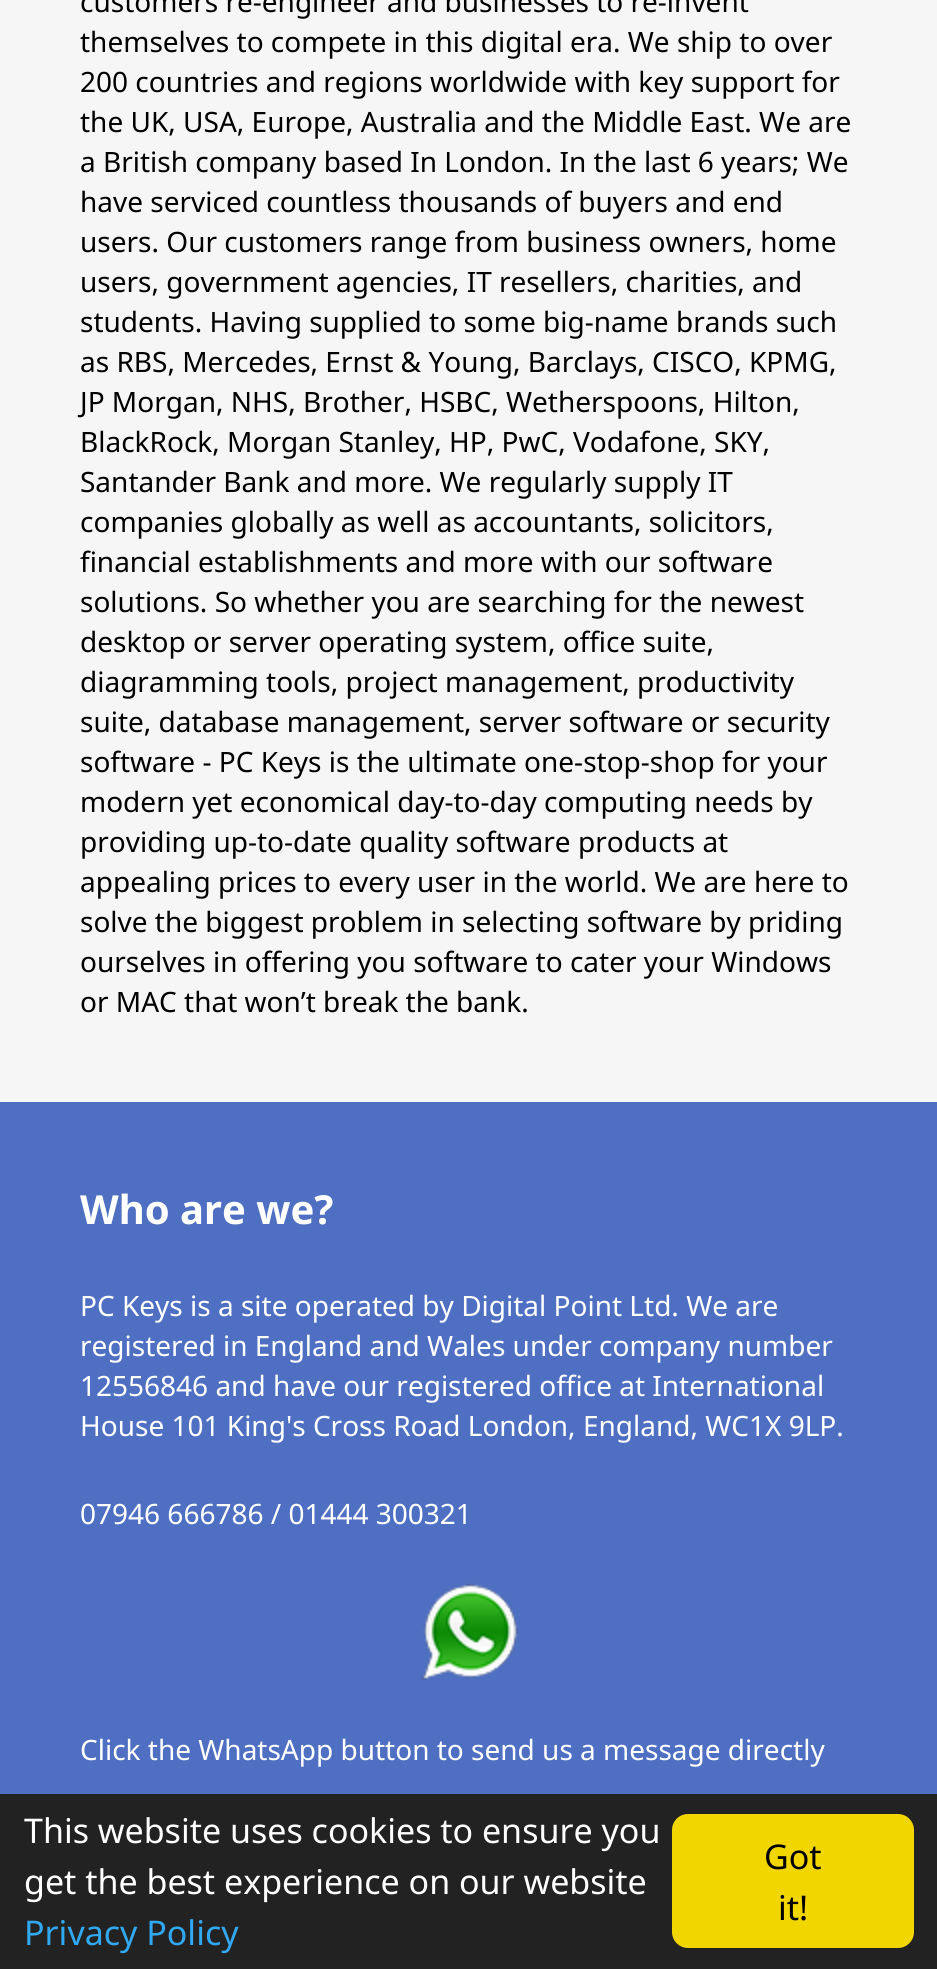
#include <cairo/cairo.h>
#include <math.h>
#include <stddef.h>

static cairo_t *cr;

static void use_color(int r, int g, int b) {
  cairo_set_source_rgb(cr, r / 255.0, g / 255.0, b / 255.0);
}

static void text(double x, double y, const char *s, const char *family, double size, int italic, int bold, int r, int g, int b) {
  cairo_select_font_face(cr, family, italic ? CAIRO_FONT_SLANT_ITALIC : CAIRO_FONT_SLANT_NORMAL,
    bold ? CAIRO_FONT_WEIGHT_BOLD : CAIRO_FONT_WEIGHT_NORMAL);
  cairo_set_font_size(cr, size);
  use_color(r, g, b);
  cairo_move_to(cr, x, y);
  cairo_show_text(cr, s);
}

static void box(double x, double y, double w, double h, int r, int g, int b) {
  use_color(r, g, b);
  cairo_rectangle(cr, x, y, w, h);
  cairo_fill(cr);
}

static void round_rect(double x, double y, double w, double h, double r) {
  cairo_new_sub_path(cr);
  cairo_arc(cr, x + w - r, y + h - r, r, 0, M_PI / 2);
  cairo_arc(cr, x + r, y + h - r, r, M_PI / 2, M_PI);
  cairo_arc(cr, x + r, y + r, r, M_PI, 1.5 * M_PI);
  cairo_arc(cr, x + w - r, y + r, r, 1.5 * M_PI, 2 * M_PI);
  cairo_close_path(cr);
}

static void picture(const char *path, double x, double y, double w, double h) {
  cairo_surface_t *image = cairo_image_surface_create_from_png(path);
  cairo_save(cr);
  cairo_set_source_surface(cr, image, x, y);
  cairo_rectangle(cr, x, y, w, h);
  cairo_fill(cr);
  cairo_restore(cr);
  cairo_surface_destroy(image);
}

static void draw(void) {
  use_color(246, 246, 246);
  cairo_paint(cr);
  box(0, 1102, 937, 692, 79, 112, 194);
  picture("img_01.png", 421, 1583, 98, 98);
  box(0, 1794, 937, 175, 34, 34, 34);
  use_color(241, 214, 0);
  round_rect(672, 1814, 242, 134, 16);
  cairo_fill(cr);
  text(80, 12, "customers re-engineer and businesses to re-invent", "Noto Sans", 28, 0, 0, 0, 0, 0);
  text(80, 52, "themselves to compete in this digital era. We ship to over", "Noto Sans", 28, 0, 0, 0, 0, 0);
  text(80, 92, "200 countries and regions worldwide with key support for", "Noto Sans", 28, 0, 0, 0, 0, 0);
  text(80, 132, "the UK, USA, Europe, Australia and the Middle East. We are", "Noto Sans", 28, 0, 0, 0, 0, 0);
  text(80, 172, "a British company based In London. In the last 6 years; We", "Noto Sans", 28, 0, 0, 0, 0, 0);
  text(80, 212, "have serviced countless thousands of buyers and end", "Noto Sans", 28, 0, 0, 0, 0, 0);
  text(80, 252, "users. Our customers range from business owners, home", "Noto Sans", 28, 0, 0, 0, 0, 0);
  text(80, 292, "users, government agencies, IT resellers, charities, and", "Noto Sans", 28, 0, 0, 0, 0, 0);
  text(80, 332, "students. Having supplied to some big-name brands such", "Noto Sans", 28, 0, 0, 0, 0, 0);
  text(80, 372, "as RBS, Mercedes, Ernst & Young, Barclays, CISCO, KPMG,", "Noto Sans", 28, 0, 0, 0, 0, 0);
  text(80, 412, "JP Morgan, NHS, Brother, HSBC, Wetherspoons, Hilton,", "Noto Sans", 28, 0, 0, 0, 0, 0);
  text(80, 452, "BlackRock, Morgan Stanley, HP, PwC, Vodafone, SKY,", "Noto Sans", 28, 0, 0, 0, 0, 0);
  text(80, 492, "Santander Bank and more. We regularly supply IT", "Noto Sans", 28, 0, 0, 0, 0, 0);
  text(80, 532, "companies globally as well as accountants, solicitors,", "Noto Sans", 28, 0, 0, 0, 0, 0);
  text(80, 572, "financial establishments and more with our software", "Noto Sans", 28, 0, 0, 0, 0, 0);
  text(80, 612, "solutions. So whether you are searching for the newest", "Noto Sans", 28, 0, 0, 0, 0, 0);
  text(80, 652, "desktop or server operating system, office suite,", "Noto Sans", 28, 0, 0, 0, 0, 0);
  text(80, 692, "diagramming tools, project management, productivity", "Noto Sans", 28, 0, 0, 0, 0, 0);
  text(80, 732, "suite, database management, server software or security", "Noto Sans", 28, 0, 0, 0, 0, 0);
  text(80, 772, "software - PC Keys is the ultimate one-stop-shop for your", "Noto Sans", 28, 0, 0, 0, 0, 0);
  text(80, 812, "modern yet economical day-to-day computing needs by", "Noto Sans", 28, 0, 0, 0, 0, 0);
  text(80, 852, "providing up-to-date quality software products at", "Noto Sans", 28, 0, 0, 0, 0, 0);
  text(80, 892, "appealing prices to every user in the world. We are here to", "Noto Sans", 28, 0, 0, 0, 0, 0);
  text(80, 932, "solve the biggest problem in selecting software by priding", "Noto Sans", 28, 0, 0, 0, 0, 0);
  text(80, 972, "ourselves in offering you software to cater your Windows", "Noto Sans", 28, 0, 0, 0, 0, 0);
  text(80, 1012, "or MAC that won’t break the bank.", "Noto Sans", 28, 0, 0, 0, 0, 0);
  text(80, 1224, "Who are we?", "Noto Sans", 40, 0, 1, 255, 255, 255);
  text(80, 1316, "PC Keys is a site operated by Digital Point Ltd. We are", "Noto Sans", 28, 0, 0, 255, 255, 255);
  text(80, 1356, "registered in England and Wales under company number", "Noto Sans", 28, 0, 0, 255, 255, 255);
  text(80, 1396, "12556846 and have our registered office at International", "Noto Sans", 28, 0, 0, 255, 255, 255);
  text(80, 1436, "House 101 King's Cross Road London, England, WC1X 9LP.", "Noto Sans", 28, 0, 0, 255, 255, 255);
  text(80, 1524, "07946 666786 / 01444 300321", "Noto Sans", 28, 0, 0, 255, 255, 255);
  text(80, 1760, "Click the WhatsApp button to send us a message directly", "Noto Sans", 28, 0, 0, 255, 255, 255);
  text(24, 1843, "This website uses cookies to ensure you", "Noto Sans", 34, 0, 0, 255, 255, 255);
  text(24, 1894, "get the best experience on our website", "Noto Sans", 34, 0, 0, 255, 255, 255);
  text(24, 1945, "Privacy Policy", "Noto Sans", 34, 0, 0, 49, 168, 240);
  text(764, 1869, "Got", "Noto Sans", 34, 0, 0, 0, 0, 0);
  text(778, 1920, "it!", "Noto Sans", 34, 0, 0, 0, 0, 0);
}

int main(void) {
  cairo_surface_t *surface = cairo_image_surface_create(CAIRO_FORMAT_RGB24, 937, 1969);
  cr = cairo_create(surface);
  cairo_font_options_t *options = cairo_font_options_create();
  cairo_font_options_set_hint_metrics(options, CAIRO_HINT_METRICS_OFF);
  cairo_font_options_set_hint_style(options, CAIRO_HINT_STYLE_NONE);
  cairo_set_font_options(cr, options);
  cairo_set_miter_limit(cr, 4);
  draw();
  cairo_surface_write_to_png(surface, "out.png");
  cairo_font_options_destroy(options);
  cairo_destroy(cr);
  cairo_surface_destroy(surface);
  return 0;
}
